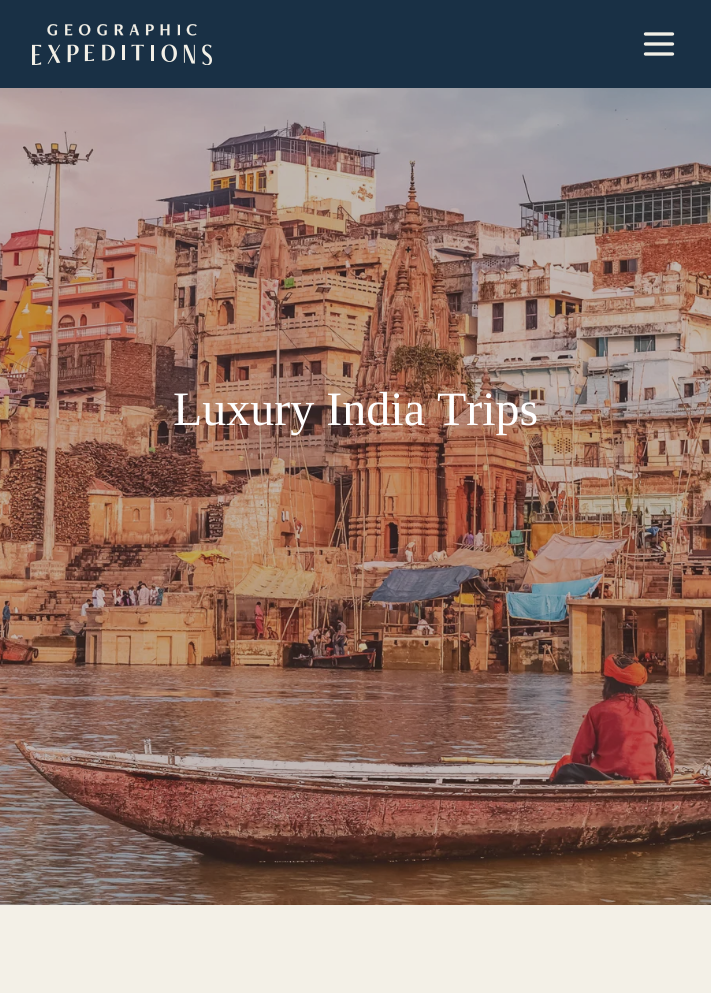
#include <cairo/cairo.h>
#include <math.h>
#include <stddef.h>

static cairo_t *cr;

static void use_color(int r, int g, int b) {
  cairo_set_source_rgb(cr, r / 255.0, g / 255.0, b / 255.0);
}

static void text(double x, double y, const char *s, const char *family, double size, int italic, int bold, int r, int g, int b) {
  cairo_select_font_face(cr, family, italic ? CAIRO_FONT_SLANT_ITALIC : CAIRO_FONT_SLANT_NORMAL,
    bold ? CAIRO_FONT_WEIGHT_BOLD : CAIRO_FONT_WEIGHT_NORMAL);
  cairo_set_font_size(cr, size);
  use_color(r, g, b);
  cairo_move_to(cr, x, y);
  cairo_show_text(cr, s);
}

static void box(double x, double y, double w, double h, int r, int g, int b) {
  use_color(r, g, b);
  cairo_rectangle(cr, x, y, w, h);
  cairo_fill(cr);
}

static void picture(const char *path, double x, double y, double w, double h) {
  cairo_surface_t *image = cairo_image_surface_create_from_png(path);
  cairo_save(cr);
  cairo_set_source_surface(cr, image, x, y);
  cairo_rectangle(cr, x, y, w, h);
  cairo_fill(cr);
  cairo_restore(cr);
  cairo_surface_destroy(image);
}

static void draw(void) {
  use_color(243, 240, 231);
  cairo_paint(cr);
  box(0, 0, 711, 88, 25, 48, 69);
  picture("img_01.png", 32, 24, 180, 41);
  cairo_new_path(cr);
  cairo_move_to(cr, 645.5, 44);
  cairo_line_to(cr, 672.5, 44);
  cairo_move_to(cr, 645.5, 54);
  cairo_line_to(cr, 672.5, 54);
  cairo_move_to(cr, 645.5, 34);
  cairo_line_to(cr, 672.5, 34);
  use_color(243, 240, 231);
  cairo_set_line_width(cr, 3.3);
  cairo_set_line_cap(cr, CAIRO_LINE_CAP_ROUND);
  cairo_set_line_join(cr, CAIRO_LINE_JOIN_ROUND);
  cairo_stroke(cr);
  picture("img_02.png", 0, 88, 711, 817);
  text(173, 425, "Luxury India Trips", "Liberation Serif", 48, 0, 0, 255, 255, 255);
}

int main(void) {
  cairo_surface_t *surface = cairo_image_surface_create(CAIRO_FORMAT_RGB24, 711, 993);
  cr = cairo_create(surface);
  cairo_font_options_t *options = cairo_font_options_create();
  cairo_font_options_set_hint_metrics(options, CAIRO_HINT_METRICS_OFF);
  cairo_font_options_set_hint_style(options, CAIRO_HINT_STYLE_NONE);
  cairo_set_font_options(cr, options);
  cairo_set_miter_limit(cr, 4);
  draw();
  cairo_surface_write_to_png(surface, "out.png");
  cairo_font_options_destroy(options);
  cairo_destroy(cr);
  cairo_surface_destroy(surface);
  return 0;
}
